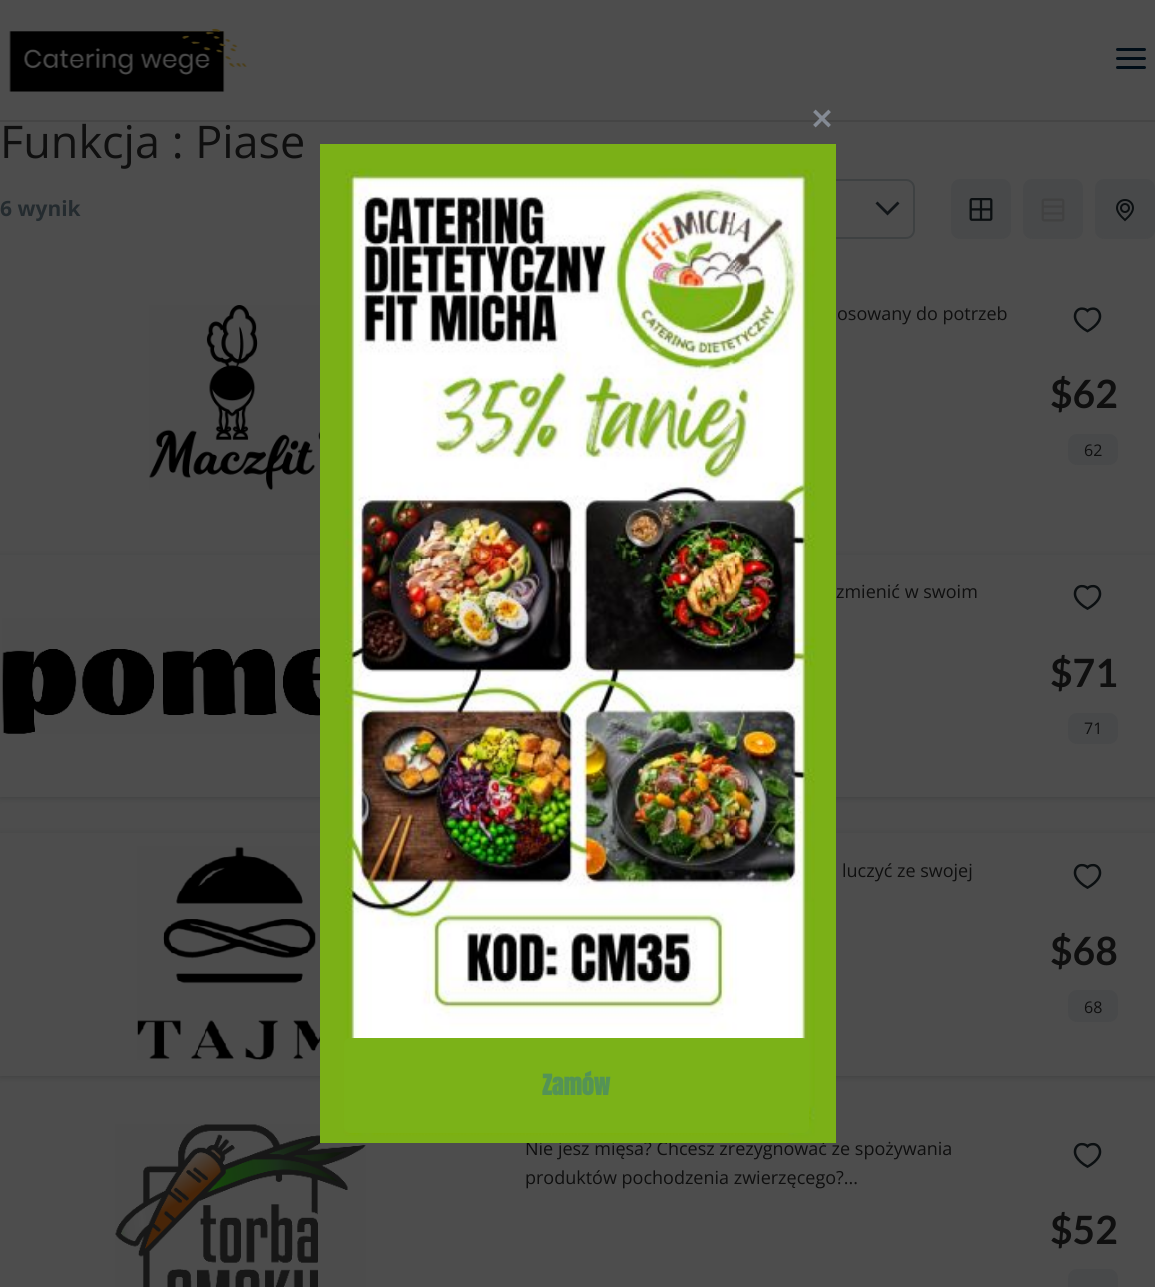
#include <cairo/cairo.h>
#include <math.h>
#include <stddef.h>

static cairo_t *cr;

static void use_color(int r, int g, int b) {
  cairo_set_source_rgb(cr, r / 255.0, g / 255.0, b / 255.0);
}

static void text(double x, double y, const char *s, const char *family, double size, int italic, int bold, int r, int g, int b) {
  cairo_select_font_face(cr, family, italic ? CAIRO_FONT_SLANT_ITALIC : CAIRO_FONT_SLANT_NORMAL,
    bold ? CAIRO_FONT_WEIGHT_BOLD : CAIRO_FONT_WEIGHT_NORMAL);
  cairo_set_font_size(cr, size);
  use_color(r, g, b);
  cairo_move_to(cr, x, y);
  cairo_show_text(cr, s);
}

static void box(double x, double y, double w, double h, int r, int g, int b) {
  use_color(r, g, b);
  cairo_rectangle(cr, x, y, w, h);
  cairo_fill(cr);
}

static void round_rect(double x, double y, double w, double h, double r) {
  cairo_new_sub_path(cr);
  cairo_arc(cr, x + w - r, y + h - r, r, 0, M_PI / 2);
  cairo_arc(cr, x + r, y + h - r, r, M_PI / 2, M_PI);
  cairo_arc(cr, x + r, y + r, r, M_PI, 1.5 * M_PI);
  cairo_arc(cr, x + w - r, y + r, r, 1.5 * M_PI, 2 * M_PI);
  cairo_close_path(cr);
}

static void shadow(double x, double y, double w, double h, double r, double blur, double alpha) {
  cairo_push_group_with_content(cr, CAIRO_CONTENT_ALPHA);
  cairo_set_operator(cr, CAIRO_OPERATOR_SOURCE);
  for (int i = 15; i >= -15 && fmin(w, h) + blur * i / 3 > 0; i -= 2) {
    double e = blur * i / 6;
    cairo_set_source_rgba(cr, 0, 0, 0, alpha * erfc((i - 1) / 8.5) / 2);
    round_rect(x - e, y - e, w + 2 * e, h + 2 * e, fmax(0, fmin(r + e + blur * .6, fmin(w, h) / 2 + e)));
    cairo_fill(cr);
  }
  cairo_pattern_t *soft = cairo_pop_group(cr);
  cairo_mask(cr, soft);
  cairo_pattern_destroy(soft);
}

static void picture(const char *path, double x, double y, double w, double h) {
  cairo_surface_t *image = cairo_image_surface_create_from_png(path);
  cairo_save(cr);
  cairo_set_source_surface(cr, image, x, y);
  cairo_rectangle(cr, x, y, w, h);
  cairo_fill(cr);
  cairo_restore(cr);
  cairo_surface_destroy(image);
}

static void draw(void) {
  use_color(77, 77, 77);
  cairo_paint(cr);
  box(0, 120, 1155, 2, 69, 69, 69);
  picture("img_01.png", 9, 28, 238, 64);
  picture("img_02.png", 1116, 48, 30, 21);
  use_color(17, 21, 24);
  cairo_set_fill_rule(cr, CAIRO_FILL_RULE_EVEN_ODD);
  cairo_new_path(cr);
  cairo_move_to(cr, 897.5, 201.5);
  cairo_line_to(cr, 899.5, 203.5);
  cairo_line_to(cr, 887.5, 215.5);
  cairo_line_to(cr, 875.5, 203.5);
  cairo_line_to(cr, 877.5, 201.5);
  cairo_line_to(cr, 887.5, 211.5);
  cairo_close_path(cr);
  cairo_fill(cr);
  round_rect(546, 180, 368, 58, 8);
  use_color(62, 65, 66);
  cairo_stroke(cr);
  use_color(72, 73, 74);
  round_rect(951, 179, 60, 60, 9);
  cairo_fill(cr);
  picture("img_03.png", 969, 198, 24, 23);
  round_rect(1023, 179, 60, 60, 9);
  cairo_fill(cr);
  picture("img_04.png", 1041, 198, 24, 24);
  round_rect(1095, 179, 60, 60, 9);
  cairo_fill(cr);
  picture("img_05.png", 1116, 199, 18, 23);
  picture("img_06.png", 149, 305, 171, 185);
  picture("img_07.png", 1073, 307, 29, 26);
  round_rect(1068, 434, 50, 31, 9);
  cairo_fill(cr);
  use_color(11, 15, 17);
  shadow(0, 557, 1155, 241, 0, 3, 0.2);
  box(0, 555, 1155, 242, 77, 77, 77);
  picture("img_08.png", 2, 618, 318, 116);
  picture("img_09.png", 1073, 584, 29, 26);
  use_color(72, 73, 74);
  round_rect(1068, 713, 50, 31, 9);
  cairo_fill(cr);
  use_color(11, 15, 17);
  shadow(0, 834, 1155, 243, 0, 3, 0.2);
  box(0, 833, 1155, 243, 77, 77, 77);
  picture("img_10.png", 137, 846, 183, 214);
  picture("img_09.png", 1073, 863, 29, 26);
  use_color(72, 73, 74);
  round_rect(1068, 990, 50, 32, 9);
  cairo_fill(cr);
  picture("img_11.png", 115, 1124, 251, 163);
  picture("img_09.png", 1073, 1142, 29, 26);
  round_rect(1068, 1269, 50, 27, 9);
  cairo_fill(cr);
  picture("img_12.png", 813, 109, 18, 19);
  text(0, 158, "Funkcja : Piase", "Open Sans", 45, 0, 0, 15, 15, 15);
  text(0, 216, "6 wynik", "Open Sans", 21, 0, 1, 36, 43, 47);
  text(837, 320, "osowany do potrzeb", "Open Sans", 18, 0, 0, 15, 15, 15);
  text(1050, 408, "$62", "Lato", 39, 0, 1, 15, 15, 15);
  text(1084, 456, "62", "Open Sans", 16, 0, 0, 15, 15, 15);
  text(836, 598, "zmienić w swoim", "Open Sans", 18, 0, 0, 15, 15, 15);
  text(1050, 687, "$71", "Lato", 39, 0, 1, 15, 15, 15);
  text(1084, 734, "71", "Open Sans", 16, 0, 0, 15, 15, 15);
  text(842, 877, "luczyć ze swojej", "Open Sans", 18, 0, 0, 15, 15, 15);
  text(1050, 965, "$68", "Lato", 39, 0, 1, 15, 15, 15);
  text(1084, 1013, "68", "Open Sans", 16, 0, 0, 15, 15, 15);
  text(525, 1155, "Nie jesz mięsa? Chcesz zrezygnować ze spożywania", "Open Sans", 18, 0, 0, 15, 15, 15);
  text(525, 1184, "produktów pochodzenia zwierzęcego?...", "Open Sans", 18, 0, 0, 15, 15, 15);
  text(1050, 1244, "$52", "Lato", 39, 0, 1, 15, 15, 15);
  picture("img_13.png", 320, 144, 516, 999);
  use_color(123, 178, 24);
  round_rect(344, 1038, 465, 95, 6);
  cairo_fill(cr);
  text(542, 1095, "Zamów", "Anton", 24, 0, 1, 84, 147, 86);
}

int main(void) {
  cairo_surface_t *surface = cairo_image_surface_create(CAIRO_FORMAT_RGB24, 1155, 1287);
  cr = cairo_create(surface);
  cairo_font_options_t *options = cairo_font_options_create();
  cairo_font_options_set_hint_metrics(options, CAIRO_HINT_METRICS_OFF);
  cairo_font_options_set_hint_style(options, CAIRO_HINT_STYLE_NONE);
  cairo_set_font_options(cr, options);
  cairo_set_miter_limit(cr, 4);
  draw();
  cairo_surface_write_to_png(surface, "out.png");
  cairo_font_options_destroy(options);
  cairo_destroy(cr);
  cairo_surface_destroy(surface);
  return 0;
}
